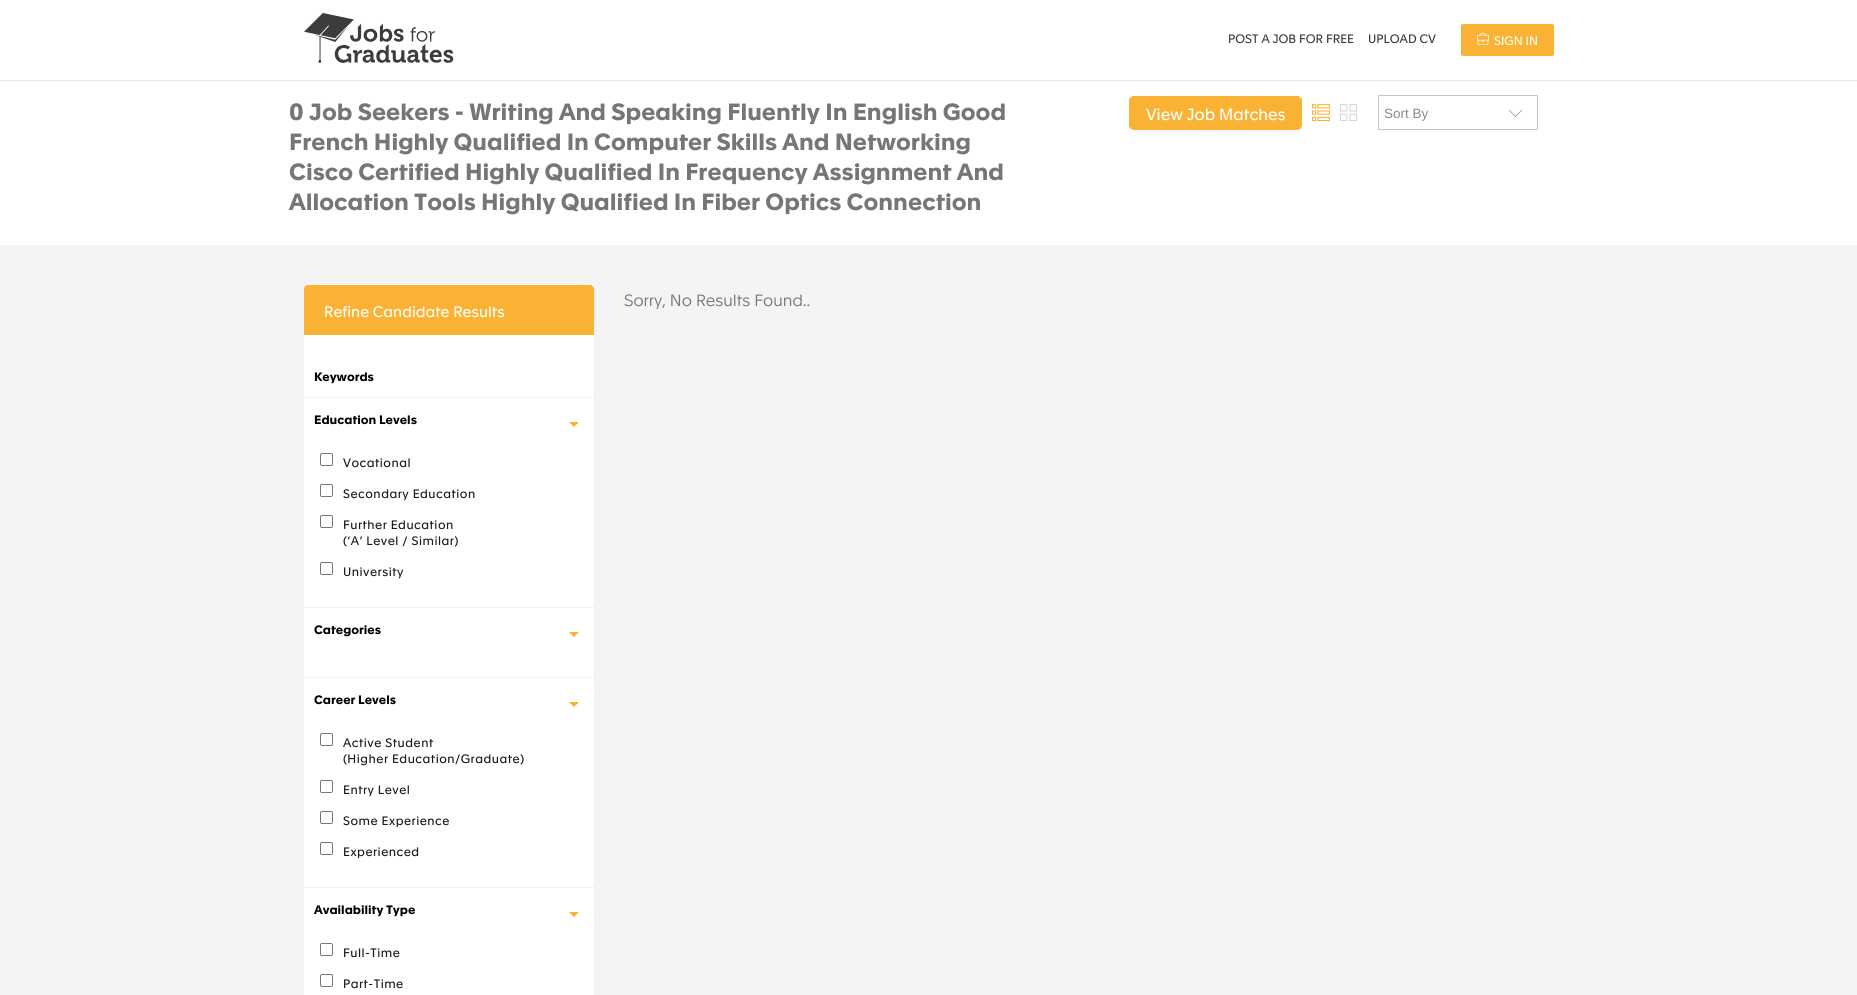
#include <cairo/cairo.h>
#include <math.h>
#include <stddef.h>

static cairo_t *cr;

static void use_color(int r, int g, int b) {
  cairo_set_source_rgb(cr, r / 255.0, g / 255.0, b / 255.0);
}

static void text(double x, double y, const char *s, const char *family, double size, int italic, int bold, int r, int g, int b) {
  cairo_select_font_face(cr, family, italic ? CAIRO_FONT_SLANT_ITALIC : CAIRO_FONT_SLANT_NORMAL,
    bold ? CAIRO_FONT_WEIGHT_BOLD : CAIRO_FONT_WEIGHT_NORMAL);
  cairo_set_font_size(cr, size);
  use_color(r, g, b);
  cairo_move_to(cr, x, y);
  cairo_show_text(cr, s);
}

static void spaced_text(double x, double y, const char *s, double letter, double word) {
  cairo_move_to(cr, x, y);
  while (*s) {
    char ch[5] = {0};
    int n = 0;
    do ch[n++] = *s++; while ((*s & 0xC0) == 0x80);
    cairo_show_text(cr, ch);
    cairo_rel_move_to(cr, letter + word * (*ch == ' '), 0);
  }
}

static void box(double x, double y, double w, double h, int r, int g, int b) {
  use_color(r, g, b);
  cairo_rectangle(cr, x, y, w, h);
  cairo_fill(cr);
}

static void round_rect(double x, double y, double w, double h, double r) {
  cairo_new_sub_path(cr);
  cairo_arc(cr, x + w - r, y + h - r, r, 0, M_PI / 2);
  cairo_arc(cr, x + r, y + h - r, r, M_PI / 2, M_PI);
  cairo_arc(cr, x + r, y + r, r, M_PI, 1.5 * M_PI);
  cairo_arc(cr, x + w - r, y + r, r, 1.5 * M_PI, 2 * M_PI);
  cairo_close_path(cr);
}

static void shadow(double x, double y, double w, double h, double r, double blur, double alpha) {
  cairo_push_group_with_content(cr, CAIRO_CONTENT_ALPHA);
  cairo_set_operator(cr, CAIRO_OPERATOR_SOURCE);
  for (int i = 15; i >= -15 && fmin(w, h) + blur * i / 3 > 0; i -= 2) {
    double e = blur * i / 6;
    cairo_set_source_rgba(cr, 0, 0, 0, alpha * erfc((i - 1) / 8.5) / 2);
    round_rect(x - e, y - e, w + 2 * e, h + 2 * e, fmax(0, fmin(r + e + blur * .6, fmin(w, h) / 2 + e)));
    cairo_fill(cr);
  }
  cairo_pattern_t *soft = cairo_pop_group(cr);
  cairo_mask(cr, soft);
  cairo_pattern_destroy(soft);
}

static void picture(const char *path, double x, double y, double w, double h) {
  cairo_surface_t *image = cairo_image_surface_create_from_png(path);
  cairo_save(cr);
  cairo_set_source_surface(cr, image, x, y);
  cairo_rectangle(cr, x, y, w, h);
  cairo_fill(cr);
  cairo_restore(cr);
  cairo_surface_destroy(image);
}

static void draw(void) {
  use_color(244, 244, 244);
  cairo_paint(cr);
  box(0, 80, 1857, 165, 255, 255, 255);
  use_color(0, 0, 0);
  shadow(0, 1, 1857, 80, 0, 0.5, 0.1);
  box(0, 0, 1857, 80, 255, 255, 255);
  picture("img_01.png", 304, 13, 150, 50);
  use_color(249, 178, 51);
  round_rect(1461.5, 24.5, 92, 31, 1.5);
  cairo_fill_preserve(cr);
  cairo_set_line_width(cr, 1);
  cairo_stroke(cr);
  picture("img_02.png", 1477, 32, 12, 13);
  round_rect(1129.5, 96.5, 172, 33, 4.5);
  cairo_fill_preserve(cr);
  cairo_stroke(cr);
  picture("img_03.png", 1312, 104, 18, 18);
  picture("img_04.png", 1340, 104, 17, 17);
  round_rect(1378.5, 95.5, 159, 34, 0.5);
  use_color(196, 196, 196);
  cairo_stroke(cr);
  use_color(140, 140, 168);
  cairo_new_path(cr);
  cairo_move_to(cr, 1515.5, 117);
  cairo_line_to(cr, 1508.5, 110);
  cairo_line_to(cr, 1509, 109.5);
  cairo_line_to(cr, 1516, 116.5);
  cairo_close_path(cr);
  cairo_fill(cr);
  cairo_new_path(cr);
  cairo_move_to(cr, 1515.5, 117);
  cairo_line_to(cr, 1515, 116.5);
  cairo_line_to(cr, 1522, 109.5);
  cairo_line_to(cr, 1522.5, 110);
  cairo_close_path(cr);
  cairo_fill(cr);
  use_color(255, 255, 255);
  round_rect(304, 285, 290, 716, 6);
  cairo_fill(cr);
  use_color(249, 178, 51);
  cairo_new_path(cr);
  cairo_move_to(cr, 308, 285);
  cairo_line_to(cr, 590, 285);
  cairo_curve_to(cr, 592, 285, 594, 287, 594, 289);
  cairo_line_to(cr, 594, 335);
  cairo_line_to(cr, 304, 335);
  cairo_line_to(cr, 304, 289);
  cairo_curve_to(cr, 304, 287, 306, 285, 308, 285);
  cairo_close_path(cr);
  cairo_fill(cr);
  box(304, 397, 290, 1, 241, 241, 241);
  use_color(249, 178, 51);
  cairo_new_path(cr);
  cairo_move_to(cr, 569, 422);
  cairo_line_to(cr, 579, 422);
  cairo_line_to(cr, 574, 427);
  cairo_close_path(cr);
  cairo_fill(cr);
  round_rect(320.5, 453.5, 12, 12, 1.5);
  use_color(118, 118, 118);
  cairo_stroke(cr);
  round_rect(320.5, 484.5, 12, 12, 1.5);
  cairo_stroke(cr);
  round_rect(320.5, 515.5, 12, 12, 1.5);
  cairo_stroke(cr);
  round_rect(320.5, 562.5, 12, 12, 1.5);
  cairo_stroke(cr);
  box(304, 607, 290, 1, 241, 241, 241);
  use_color(249, 178, 51);
  cairo_new_path(cr);
  cairo_move_to(cr, 569, 632);
  cairo_line_to(cr, 579, 632);
  cairo_line_to(cr, 574, 637);
  cairo_close_path(cr);
  cairo_fill(cr);
  box(304, 677, 290, 1, 241, 241, 241);
  use_color(249, 178, 51);
  cairo_new_path(cr);
  cairo_move_to(cr, 569, 702);
  cairo_line_to(cr, 579, 702);
  cairo_line_to(cr, 574, 707);
  cairo_close_path(cr);
  cairo_fill(cr);
  round_rect(320.5, 733.5, 12, 12, 1.5);
  use_color(118, 118, 118);
  cairo_stroke(cr);
  round_rect(320.5, 780.5, 12, 12, 1.5);
  cairo_stroke(cr);
  round_rect(320.5, 811.5, 12, 12, 1.5);
  cairo_stroke(cr);
  round_rect(320.5, 842.5, 12, 12, 1.5);
  cairo_stroke(cr);
  box(304, 887, 290, 1, 241, 241, 241);
  use_color(249, 178, 51);
  cairo_new_path(cr);
  cairo_move_to(cr, 569, 912);
  cairo_line_to(cr, 579, 912);
  cairo_line_to(cr, 574, 917);
  cairo_close_path(cr);
  cairo_fill(cr);
  round_rect(320.5, 943.5, 12, 12, 1.5);
  use_color(118, 118, 118);
  cairo_stroke(cr);
  round_rect(320.5, 974.5, 12, 12, 1.5);
  cairo_stroke(cr);
  text(1228, 43, "POST A JOB FOR FREE", "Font", 12, 0, 0, 60, 60, 59);
  text(1368, 43, "UPLOAD CV", "Font", 12, 0, 0, 60, 60, 59);
  text(1494, 45, "SIGN IN", "Font", 12, 0, 0, 255, 255, 255);
  text(289, 120, "0 Job Seekers - Writing And Speaking Fluently In English Good", "Font", 23, 0, 1, 118, 118, 118);
  text(289, 150, "French Highly Qualified In Computer Skills And Networking", "Font", 23, 0, 1, 118, 118, 118);
  text(289, 180, "Cisco Certified Highly Qualified In Frequency Assignment And", "Font", 23, 0, 1, 118, 118, 118);
  text(289, 210, "Allocation Tools Highly Qualified In Fiber Optics Connection", "Font", 23, 0, 1, 118, 118, 118);
  text(1146, 120, "View Job Matches", "Font", 16, 0, 0, 255, 255, 255);
  text(1384, 118, "Sort By", "Liberation Sans", 13.5, 0, 0, 137, 137, 137);
  text(624, 306, "Sorry, No Results Found..", "Font Light", 16, 0, 0, 118, 118, 118);
  text(324, 317, "Refine Candidate Results", "Font", 15, 0, 0, 255, 255, 255);
  text(314, 381, "Keywords", "Font", 12, 0, 1, 0, 0, 0);
  text(314, 424, "Education Levels", "Font", 12, 0, 1, 0, 0, 0);
  cairo_select_font_face(cr, "Font", CAIRO_FONT_SLANT_NORMAL, CAIRO_FONT_WEIGHT_NORMAL);
  use_color(26, 26, 26);
  spaced_text(343, 467, "Vocational", 0.5, 0);
  spaced_text(343, 498, "Secondary Education", 0.5, 0);
  spaced_text(343, 529, "Further Education", 0.5, 0);
  spaced_text(343, 545, "(‘A’ Level / Similar)", 0.5, 0);
  spaced_text(343, 576, "University", 0.5, 0);
  text(314, 634, "Categories", "Font", 12, 0, 1, 0, 0, 0);
  text(314, 704, "Career Levels", "Font", 12, 0, 1, 0, 0, 0);
  cairo_select_font_face(cr, "Font", CAIRO_FONT_SLANT_NORMAL, CAIRO_FONT_WEIGHT_NORMAL);
  use_color(26, 26, 26);
  spaced_text(343, 747, "Active Student", 0.5, 0);
  spaced_text(343, 763, "(Higher Education/Graduate)", 0.5, 0);
  spaced_text(343, 794, "Entry Level", 0.5, 0);
  spaced_text(343, 825, "Some Experience", 0.5, 0);
  spaced_text(343, 856, "Experienced", 0.5, 0);
  text(314, 914, "Availability Type", "Font", 12, 0, 1, 0, 0, 0);
  cairo_select_font_face(cr, "Font", CAIRO_FONT_SLANT_NORMAL, CAIRO_FONT_WEIGHT_NORMAL);
  use_color(26, 26, 26);
  spaced_text(343, 957, "Full-Time", 0.5, 0);
  spaced_text(343, 988, "Part-Time", 0.5, 0);
}

int main(void) {
  cairo_surface_t *surface = cairo_image_surface_create(CAIRO_FORMAT_RGB24, 1857, 995);
  cr = cairo_create(surface);
  cairo_font_options_t *options = cairo_font_options_create();
  cairo_font_options_set_hint_metrics(options, CAIRO_HINT_METRICS_OFF);
  cairo_font_options_set_hint_style(options, CAIRO_HINT_STYLE_NONE);
  cairo_set_font_options(cr, options);
  cairo_set_miter_limit(cr, 4);
  draw();
  cairo_surface_write_to_png(surface, "out.png");
  cairo_font_options_destroy(options);
  cairo_destroy(cr);
  cairo_surface_destroy(surface);
  return 0;
}
